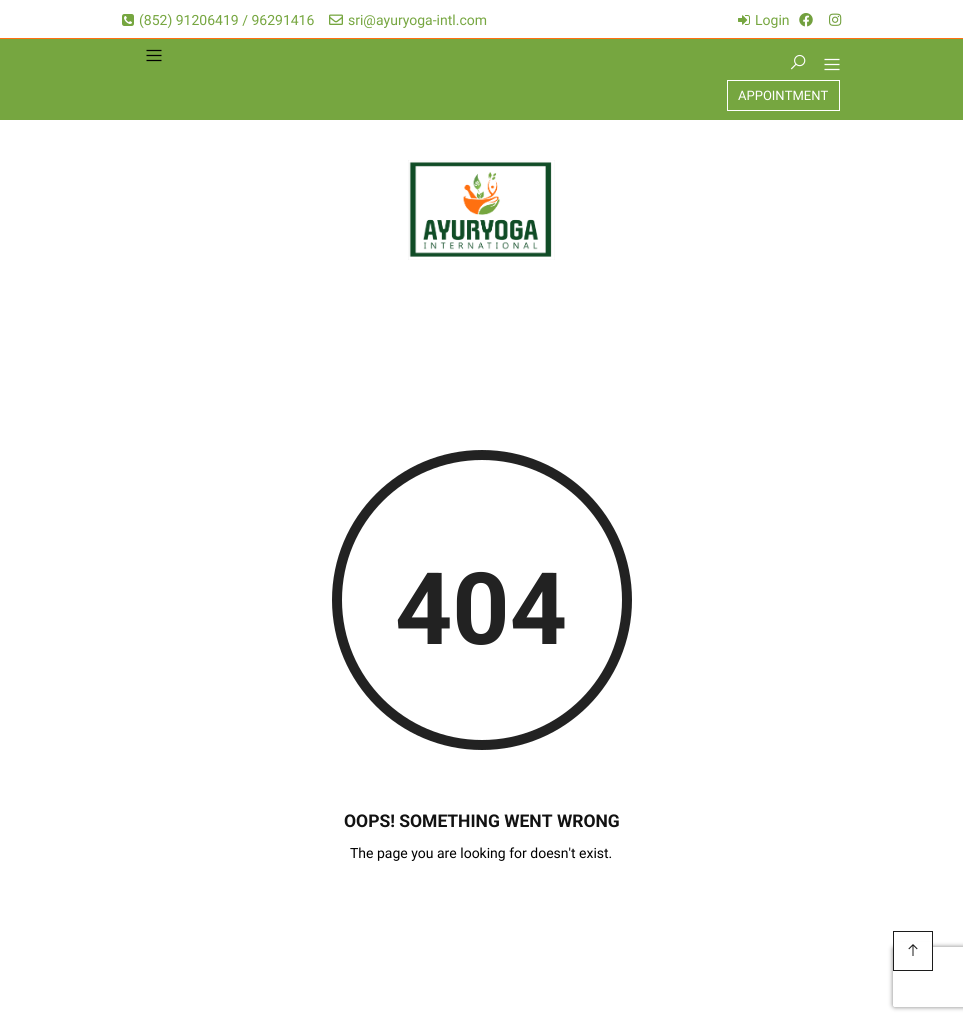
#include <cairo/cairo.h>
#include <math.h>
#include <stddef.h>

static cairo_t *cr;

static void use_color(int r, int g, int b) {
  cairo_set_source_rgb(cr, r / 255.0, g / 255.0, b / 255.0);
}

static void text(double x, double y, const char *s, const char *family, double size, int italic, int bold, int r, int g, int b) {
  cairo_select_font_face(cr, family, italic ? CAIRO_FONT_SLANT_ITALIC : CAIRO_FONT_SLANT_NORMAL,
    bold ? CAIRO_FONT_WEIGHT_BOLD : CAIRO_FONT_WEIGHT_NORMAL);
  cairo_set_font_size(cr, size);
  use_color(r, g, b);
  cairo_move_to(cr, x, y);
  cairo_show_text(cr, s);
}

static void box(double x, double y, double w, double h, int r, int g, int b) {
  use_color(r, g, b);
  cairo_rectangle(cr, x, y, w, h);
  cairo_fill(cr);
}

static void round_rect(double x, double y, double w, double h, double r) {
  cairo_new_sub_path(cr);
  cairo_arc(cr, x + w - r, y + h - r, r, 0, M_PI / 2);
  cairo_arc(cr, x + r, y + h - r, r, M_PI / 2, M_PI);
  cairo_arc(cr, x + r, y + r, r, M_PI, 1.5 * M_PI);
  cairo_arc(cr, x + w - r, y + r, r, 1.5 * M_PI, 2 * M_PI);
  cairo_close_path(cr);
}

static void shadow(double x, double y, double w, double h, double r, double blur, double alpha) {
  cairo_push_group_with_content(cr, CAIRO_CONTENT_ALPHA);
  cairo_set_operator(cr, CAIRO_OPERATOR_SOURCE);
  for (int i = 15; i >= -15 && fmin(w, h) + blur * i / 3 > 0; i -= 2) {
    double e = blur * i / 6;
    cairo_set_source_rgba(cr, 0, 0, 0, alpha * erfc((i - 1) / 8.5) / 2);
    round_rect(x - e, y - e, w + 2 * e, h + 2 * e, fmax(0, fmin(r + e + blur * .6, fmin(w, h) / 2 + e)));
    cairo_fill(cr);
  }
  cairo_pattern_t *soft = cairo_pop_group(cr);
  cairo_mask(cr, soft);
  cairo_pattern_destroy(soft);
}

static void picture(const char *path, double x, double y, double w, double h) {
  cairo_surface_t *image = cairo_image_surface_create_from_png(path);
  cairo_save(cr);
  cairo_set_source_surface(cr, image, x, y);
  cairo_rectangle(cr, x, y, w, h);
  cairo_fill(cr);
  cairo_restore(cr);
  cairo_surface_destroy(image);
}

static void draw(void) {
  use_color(255, 255, 255);
  cairo_paint(cr);
  box(0, 38, 963, 1, 255, 112, 16);
  picture("img_01.png", 122, 14, 12, 12);
  picture("img_02.png", 329, 14, 14, 11);
  picture("img_03.png", 738, 15, 12, 10);
  picture("img_04.png", 799, 13, 14, 14);
  picture("img_05.png", 829, 13, 13, 13);
  box(0, 39, 963, 81, 118, 166, 64);
  picture("img_06.png", 146, 49, 16, 13);
  picture("img_07.png", 790, 54, 16, 16);
  picture("img_08.png", 824, 58, 16, 13);
  cairo_rectangle(cr, 727.5, 80.5, 112, 30);
  use_color(255, 255, 255);
  cairo_set_line_width(cr, 1);
  cairo_stroke(cr);
  picture("img_09.png", 408, 160, 147, 100);
  cairo_arc(cr, 482, 600, 145, 0, 2 * M_PI);
  use_color(34, 34, 34);
  cairo_set_line_width(cr, 10);
  cairo_stroke(cr);
  cairo_save(cr);
  cairo_set_fill_rule(cr, CAIRO_FILL_RULE_EVEN_ODD);
  cairo_new_path(cr);
  cairo_move_to(cr, 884, 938);
  cairo_line_to(cr, 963, 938);
  cairo_line_to(cr, 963, 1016);
  cairo_line_to(cr, 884, 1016);
  cairo_close_path(cr);
  cairo_move_to(cr, 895, 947);
  cairo_line_to(cr, 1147, 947);
  cairo_curve_to(cr, 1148, 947, 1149, 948, 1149, 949);
  cairo_line_to(cr, 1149, 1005);
  cairo_curve_to(cr, 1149, 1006, 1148, 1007, 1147, 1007);
  cairo_line_to(cr, 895, 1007);
  cairo_curve_to(cr, 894, 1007, 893, 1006, 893, 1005);
  cairo_line_to(cr, 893, 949);
  cairo_curve_to(cr, 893, 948, 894, 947, 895, 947);
  cairo_close_path(cr);
  cairo_clip(cr);
  use_color(128, 128, 128);
  shadow(893, 947, 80, 60, 2, 2.5, 1);
  cairo_restore(cr);
  box(894, 942, 38, 6, 255, 255, 255);
  cairo_rectangle(cr, 893.5, 931.5, 39, 39);
  use_color(28, 28, 28);
  cairo_set_line_width(cr, 1);
  cairo_stroke(cr);
  picture("img_10.png", 908, 944, 10, 12);
  text(139, 25, "(852) 91206419 / 96291416", "Roboto", 14, 0, 0, 118, 166, 64);
  text(348, 25, "sri@ayuryoga-intl.com", "Roboto", 14, 0, 0, 118, 166, 64);
  text(755, 25, "Login", "Roboto", 14, 0, 0, 118, 166, 64);
  text(738, 100, "APPOINTMENT", "Roboto", 13, 0, 0, 255, 255, 255);
  text(395, 644, "404", "Roboto", 100, 0, 1, 34, 34, 34);
  text(344, 827, "OOPS! SOMETHING WENT WRONG", "Roboto", 17.5, 0, 1, 18, 18, 18);
  text(350, 858, "The page you are looking for doesn't exist.", "Roboto", 14, 0, 0, 0, 0, 0);
}

int main(void) {
  cairo_surface_t *surface = cairo_image_surface_create(CAIRO_FORMAT_RGB24, 963, 1021);
  cr = cairo_create(surface);
  cairo_font_options_t *options = cairo_font_options_create();
  cairo_font_options_set_hint_metrics(options, CAIRO_HINT_METRICS_OFF);
  cairo_font_options_set_hint_style(options, CAIRO_HINT_STYLE_NONE);
  cairo_set_font_options(cr, options);
  cairo_set_miter_limit(cr, 4);
  draw();
  cairo_surface_write_to_png(surface, "out.png");
  cairo_font_options_destroy(options);
  cairo_destroy(cr);
  cairo_surface_destroy(surface);
  return 0;
}
